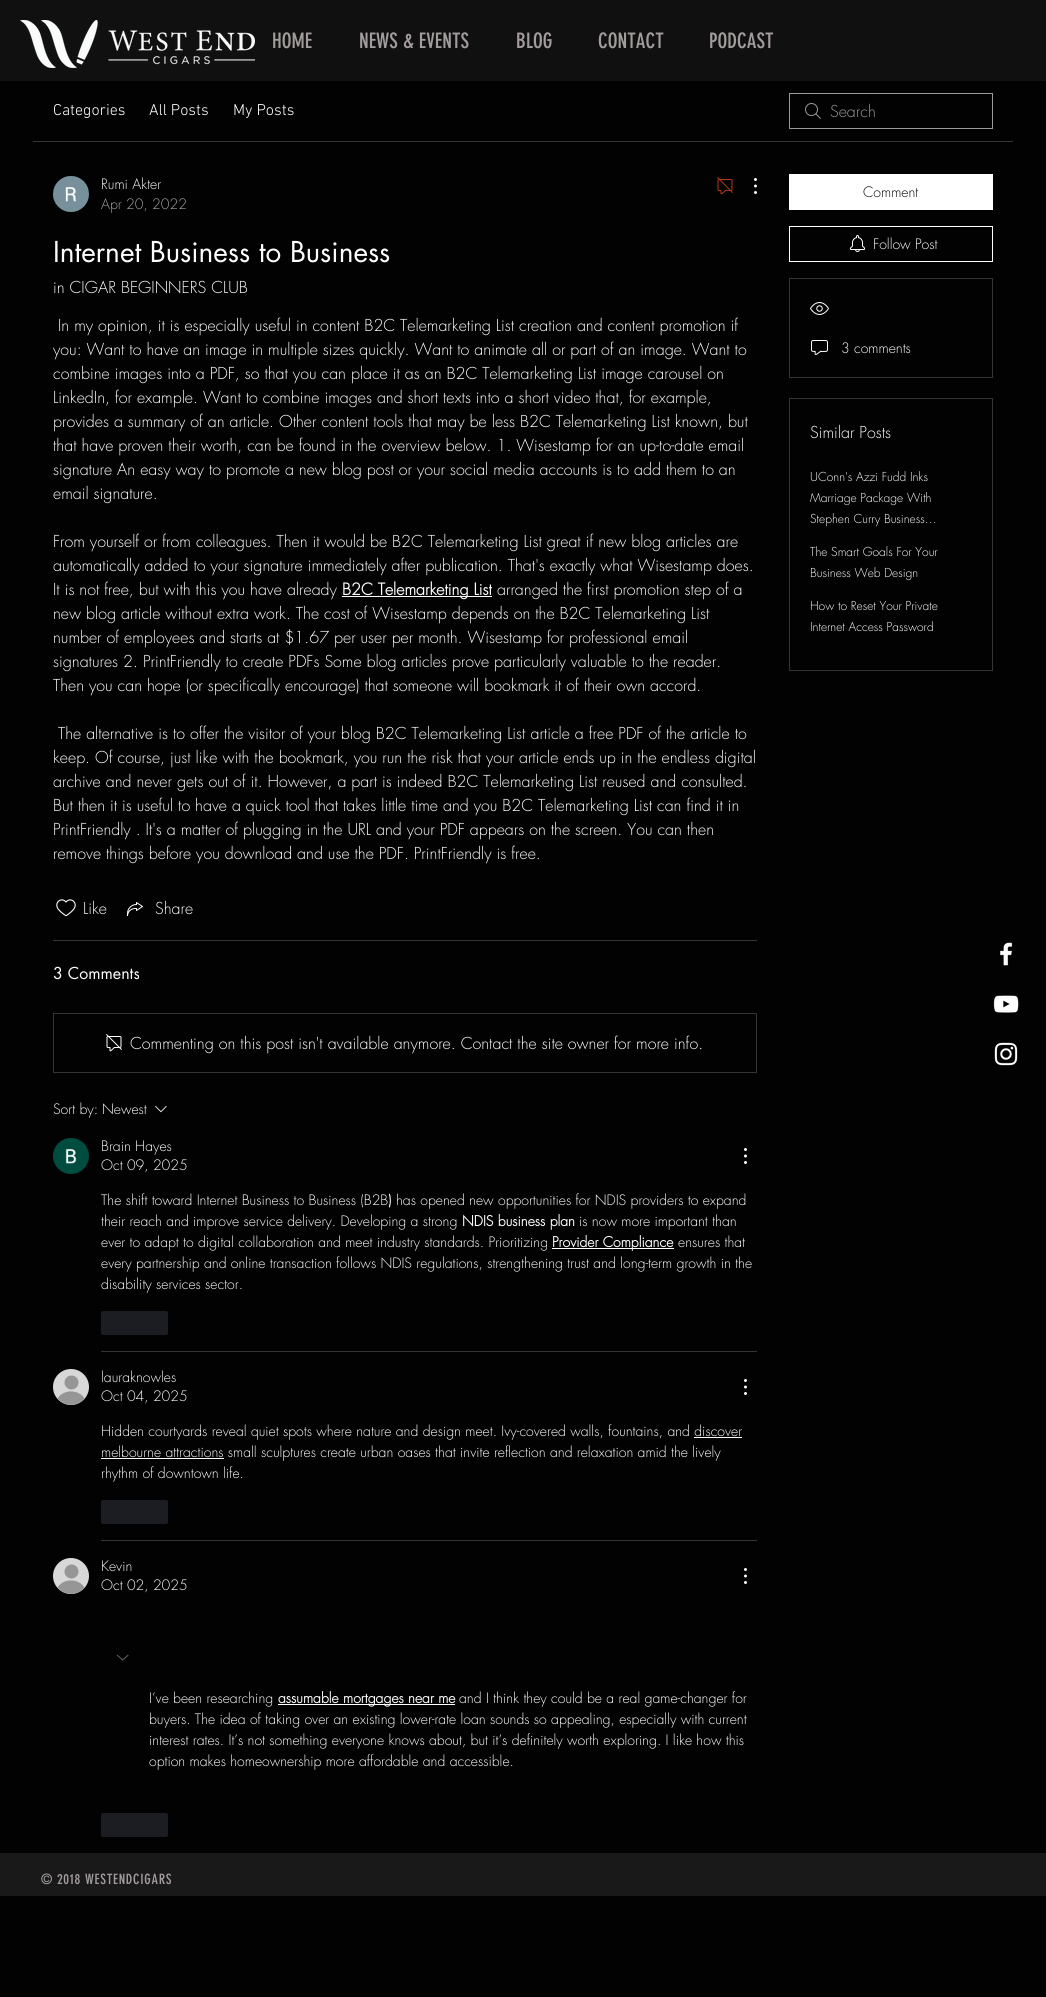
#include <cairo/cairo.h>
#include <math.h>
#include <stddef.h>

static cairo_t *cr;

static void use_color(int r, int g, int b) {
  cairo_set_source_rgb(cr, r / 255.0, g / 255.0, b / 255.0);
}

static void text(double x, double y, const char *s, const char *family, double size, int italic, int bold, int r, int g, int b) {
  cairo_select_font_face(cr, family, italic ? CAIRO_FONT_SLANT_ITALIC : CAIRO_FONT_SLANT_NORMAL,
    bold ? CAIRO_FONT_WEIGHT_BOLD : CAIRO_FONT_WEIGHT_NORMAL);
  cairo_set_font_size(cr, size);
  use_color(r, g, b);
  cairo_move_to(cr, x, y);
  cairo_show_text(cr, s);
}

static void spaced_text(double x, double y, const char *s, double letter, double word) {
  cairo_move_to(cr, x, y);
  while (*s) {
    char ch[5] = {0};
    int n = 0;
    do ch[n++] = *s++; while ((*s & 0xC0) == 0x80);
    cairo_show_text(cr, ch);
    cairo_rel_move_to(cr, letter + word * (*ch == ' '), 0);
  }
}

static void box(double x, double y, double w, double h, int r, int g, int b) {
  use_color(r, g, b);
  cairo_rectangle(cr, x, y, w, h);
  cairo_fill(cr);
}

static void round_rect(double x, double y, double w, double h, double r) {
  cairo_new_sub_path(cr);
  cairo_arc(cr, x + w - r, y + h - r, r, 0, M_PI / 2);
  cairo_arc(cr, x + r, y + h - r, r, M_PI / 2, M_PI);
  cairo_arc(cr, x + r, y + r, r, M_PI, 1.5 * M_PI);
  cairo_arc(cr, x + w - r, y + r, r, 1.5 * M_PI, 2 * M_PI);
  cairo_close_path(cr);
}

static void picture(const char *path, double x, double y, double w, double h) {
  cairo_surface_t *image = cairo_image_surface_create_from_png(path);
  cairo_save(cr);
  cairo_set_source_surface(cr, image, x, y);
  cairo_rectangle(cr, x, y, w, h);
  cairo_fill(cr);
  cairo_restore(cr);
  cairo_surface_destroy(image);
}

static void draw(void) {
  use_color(2, 2, 2);
  cairo_paint(cr);
  box(0, 0, 1046, 81, 16, 16, 16);
  picture("img_01.png", 20, 20, 235, 48);
  box(33, 141, 980, 1, 53, 53, 53);
  picture("img_02.png", 805, 103, 16, 16);
  cairo_rectangle(cr, 789.5, 93.5, 203, 35);
  use_color(154, 154, 154);
  cairo_set_line_width(cr, 1);
  cairo_stroke(cr);
  picture("img_03.png", 53, 176, 36, 36);
  picture("img_04.png", 717, 177, 16, 18);
  picture("img_05.png", 754, 178, 3, 16);
  box(342, 596, 150, 1, 255, 255, 255);
  picture("img_06.png", 56, 899, 20, 18);
  picture("img_07.png", 127, 902, 16, 14);
  box(53, 940, 704, 1, 53, 53, 53);
  cairo_rectangle(cr, 53.5, 1013.5, 703, 59);
  cairo_stroke(cr);
  picture("img_08.png", 106, 1034, 16, 18);
  picture("img_09.png", 155, 1105, 12, 8);
  picture("img_10.png", 53, 1138, 36, 36);
  picture("img_11.png", 744, 1148, 3, 16);
  box(552, 1248, 122, 1, 255, 255, 255);
  use_color(28, 29, 35);
  round_rect(101, 1311, 67, 24, 2);
  cairo_fill(cr);
  box(101, 1351, 656, 1, 53, 53, 53);
  use_color(216, 216, 216);
  cairo_arc(cr, 71, 1387, 18, 0, 2 * M_PI);
  cairo_fill(cr);
  use_color(150, 150, 150);
  cairo_arc(cr, 71.5, 1382.5, 7, 0, 2 * M_PI);
  cairo_fill(cr);
  cairo_new_path(cr);
  cairo_move_to(cr, 84.5, 1398.5);
  cairo_curve_to(cr, 77.5, 1407, 64.5, 1407, 57.5, 1398.5);
  cairo_curve_to(cr, 63.5, 1389, 78.5, 1389, 84.5, 1398.5);
  cairo_close_path(cr);
  cairo_fill(cr);
  picture("img_11.png", 744, 1379, 3, 16);
  box(694, 1437, 48, 1, 255, 255, 255);
  box(101, 1458, 123, 1, 255, 255, 255);
  use_color(28, 29, 35);
  round_rect(101, 1500, 67, 24, 2);
  cairo_fill(cr);
  box(101, 1540, 656, 1, 53, 53, 53);
  use_color(216, 216, 216);
  cairo_arc(cr, 71, 1576, 18, 0, 2 * M_PI);
  cairo_fill(cr);
  use_color(150, 150, 150);
  cairo_arc(cr, 71.5, 1571.5, 7, 0, 2 * M_PI);
  cairo_fill(cr);
  cairo_new_path(cr);
  cairo_move_to(cr, 84.5, 1587.5);
  cairo_curve_to(cr, 77.5, 1596, 64.5, 1596, 57.5, 1587.5);
  cairo_curve_to(cr, 63.5, 1578, 78.5, 1578, 84.5, 1587.5);
  cairo_close_path(cr);
  cairo_fill(cr);
  picture("img_11.png", 744, 1568, 3, 16);
  picture("img_12.png", 116, 1654, 13, 7);
  box(278, 1704, 177, 1, 255, 255, 255);
  use_color(28, 29, 35);
  round_rect(101, 1813, 67, 24, 2);
  cairo_fill(cr);
  box(789, 174, 204, 36, 255, 255, 255);
  cairo_rectangle(cr, 789.5, 226.5, 203, 35);
  cairo_stroke(cr);
  picture("img_13.png", 850, 235, 15, 17);
  cairo_rectangle(cr, 789.5, 278.5, 203, 99);
  use_color(53, 53, 53);
  cairo_stroke(cr);
  picture("img_14.png", 810, 302, 19, 13);
  picture("img_15.png", 811, 340, 17, 15);
  cairo_rectangle(cr, 789.5, 398.5, 203, 272);
  cairo_stroke(cr);
  picture("img_16.png", 1000, 942, 13, 24);
  picture("img_17.png", 993, 995, 26, 18);
  picture("img_18.png", 994, 1042, 24, 24);
  box(0, 1853, 1046, 43, 26, 25, 25);
  text(272, 48, "HOME", "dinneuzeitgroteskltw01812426", 21, 0, 0, 162, 156, 156);
  text(359, 48, "NEWS & EVENTS", "dinneuzeitgroteskltw01812426", 21, 0, 0, 162, 156, 156);
  text(516, 48, "BLOG", "dinneuzeitgroteskltw01812426", 21, 0, 0, 162, 156, 156);
  text(598, 48, "CONTACT", "dinneuzeitgroteskltw01812426", 21, 0, 0, 162, 156, 156);
  text(709, 48, "PODCAST", "dinneuzeitgroteskltw01812426", 21, 0, 0, 162, 156, 156);
  text(53, 115, "Categories", "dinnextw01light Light", 16, 0, 0, 255, 255, 255);
  text(149, 115, "All Posts", "dinnextw01light Light", 16, 0, 0, 255, 255, 255);
  text(233, 115, "My Posts", "dinnextw01light Light", 16, 0, 0, 255, 255, 255);
  text(830, 117, "Search", "futura Light", 16, 0, 0, 154, 154, 154);
  text(101, 189, "Rumi Akter", "futura Light", 14, 0, 0, 255, 255, 255);
  text(101, 209, "Apr 20, 2022", "futura Light", 14, 0, 0, 164, 164, 164);
  text(53, 262, "Internet Business to Business", "futura", 28, 0, 0, 255, 255, 255);
  text(53, 293, "in CIGAR BEGINNERS CLUB", "futura Light", 16, 0, 0, 255, 255, 255);
  text(58, 331, "In my opinion, it is especially useful in content B2C Telemarketing List creation and content promotion if", "futura Light", 16, 0, 0, 255, 255, 255);
  text(53, 355, "you: Want to have an image in multiple sizes quickly. Want to animate all or part of an image. Want to", "futura Light", 16, 0, 0, 255, 255, 255);
  text(53, 379, "combine images into a PDF, so that you can place it as an B2C Telemarketing List image carousel on", "futura Light", 16, 0, 0, 255, 255, 255);
  text(53, 403, "LinkedIn, for example. Want to combine images and short texts into a short video that, for example,", "futura Light", 16, 0, 0, 255, 255, 255);
  text(53, 427, "provides a summary of an article. Other content tools that may be less B2C Telemarketing List known, but", "futura Light", 16, 0, 0, 255, 255, 255);
  text(53, 451, "that have proven their worth, can be found in the overview below. 1. Wisestamp for an up-to-date email", "futura Light", 16, 0, 0, 255, 255, 255);
  text(53, 475, "signature An easy way to promote a new blog post or your social media accounts is to add them to an", "futura Light", 16, 0, 0, 255, 255, 255);
  text(53, 499, "email signature.", "futura Light", 16, 0, 0, 255, 255, 255);
  text(53, 547, "From yourself or from colleagues. Then it would be B2C Telemarketing List great if new blog articles are", "futura Light", 16, 0, 0, 255, 255, 255);
  text(53, 571, "automatically added to your signature immediately after publication. That's exactly what Wisestamp does.", "futura Light", 16, 0, 0, 255, 255, 255);
  text(53, 595, "It is not free, but with this you have already", "futura Light", 16, 0, 0, 255, 255, 255);
  text(342, 595, "B2C Telemarketing List", "futura", 16, 0, 1, 255, 255, 255);
  text(497, 595, "arranged the first promotion step of a", "futura Light", 16, 0, 0, 255, 255, 255);
  text(53, 619, "new blog article without extra work. The cost of Wisestamp depends on the B2C Telemarketing List", "futura Light", 16, 0, 0, 255, 255, 255);
  text(53, 643, "number of employees and starts at $1.67 per user per month. Wisestamp for professional email", "futura Light", 16, 0, 0, 255, 255, 255);
  text(53, 667, "signatures 2. PrintFriendly to create PDFs Some blog articles prove particularly valuable to the reader.", "futura Light", 16, 0, 0, 255, 255, 255);
  text(53, 691, "Then you can hope (or specifically encourage) that someone will bookmark it of their own accord.", "futura Light", 16, 0, 0, 255, 255, 255);
  text(58, 739, "The alternative is to offer the visitor of your blog B2C Telemarketing List article a free PDF of the article to", "futura Light", 16, 0, 0, 255, 255, 255);
  text(53, 763, "keep. Of course, just like with the bookmark, you run the risk that your article ends up in the endless digital", "futura Light", 16, 0, 0, 255, 255, 255);
  text(53, 787, "archive and never gets out of it. However, a part is indeed B2C Telemarketing List reused and consulted.", "futura Light", 16, 0, 0, 255, 255, 255);
  text(53, 811, "But then it is useful to have a quick tool that takes little time and you B2C Telemarketing List can find it in", "futura Light", 16, 0, 0, 255, 255, 255);
  text(53, 835, "PrintFriendly . It's a matter of plugging in the URL and your PDF appears on the screen. You can then", "futura Light", 16, 0, 0, 255, 255, 255);
  text(53, 859, "remove things before you download and use the PDF. PrintFriendly is free.", "futura Light", 16, 0, 0, 255, 255, 255);
  text(83, 914, "Like", "futura Light", 16, 0, 0, 255, 255, 255);
  text(155, 914, "Share", "futura Light", 16, 0, 0, 255, 255, 255);
  text(53, 979, "3 Comments", "futura", 16, 0, 0, 255, 255, 255);
  text(130, 1049, "Commenting on this post isn't available anymore. Contact the site owner for more info.", "futura Light", 16, 0, 0, 255, 255, 255);
  text(53, 1114, "Sort by:", "futura Light", 14, 0, 0, 255, 255, 255);
  text(102, 1114, "Newest", "futura Light", 14, 0, 0, 255, 255, 255);
  text(101, 1151, "Brain Hayes", "futura Light", 14, 0, 0, 255, 255, 255);
  text(101, 1170, "Oct 09, 2025", "futura Light", 14, 0, 0, 255, 255, 255);
  text(101, 1205, "The shift toward Internet Business to Business (B2B", "futura Light", 14, 0, 0, 255, 255, 255);
  text(388, 1205, ")", "futura", 14, 0, 1, 255, 255, 255);
  text(396, 1205, "has opened new opportunities for NDIS providers to expand", "futura Light", 14, 0, 0, 255, 255, 255);
  text(101, 1226, "their reach and improve service delivery. Developing a strong", "futura Light", 14, 0, 0, 255, 255, 255);
  text(462, 1226, "NDIS business plan", "futura", 14, 0, 1, 255, 255, 255);
  text(579, 1226, "is now more important than", "futura Light", 14, 0, 0, 255, 255, 255);
  text(101, 1247, "ever to adapt to digital collaboration and meet industry standards. Prioritizing", "futura Light", 14, 0, 0, 255, 255, 255);
  text(552, 1247, "Provider Compliance", "futura", 14, 0, 1, 255, 255, 255);
  text(678, 1247, "ensures that", "futura Light", 14, 0, 0, 255, 255, 255);
  text(101, 1268, "every partnership and online transaction follows NDIS regulations, strengthening trust and long-term growth in the", "futura Light", 14, 0, 0, 255, 255, 255);
  text(101, 1289, "disability services sector.", "futura Light", 14, 0, 0, 255, 255, 255);
  text(101, 1382, "lauraknowles", "futura Light", 14, 0, 0, 255, 255, 255);
  text(101, 1401, "Oct 04, 2025", "futura Light", 14, 0, 0, 255, 255, 255);
  text(101, 1436, "Hidden courtyards reveal quiet spots where nature and design meet. Ivy-covered walls, fountains, and discover", "futura Light", 14, 0, 0, 255, 255, 255);
  text(101, 1457, "melbourne attractions small sculptures create urban oases that invite reflection and relaxation amid the lively", "futura Light", 14, 0, 0, 255, 255, 255);
  text(101, 1478, "rhythm of downtown life.", "futura Light", 14, 0, 0, 255, 255, 255);
  text(101, 1571, "Kevin", "futura Light", 14, 0, 0, 255, 255, 255);
  text(101, 1590, "Oct 02, 2025", "futura Light", 14, 0, 0, 255, 255, 255);
  text(149, 1703, "I’ve been researching", "futura Light", 14, 0, 0, 255, 255, 255);
  text(278, 1703, "assumable mortgages near me", "futura", 14, 0, 1, 255, 255, 255);
  text(459, 1703, "and I think they could be a real game-changer for", "futura Light", 14, 0, 0, 255, 255, 255);
  text(149, 1724, "buyers. The idea of taking over an existing lower-rate loan sounds so appealing, especially with current", "futura Light", 14, 0, 0, 255, 255, 255);
  text(149, 1745, "interest rates. It’s not something everyone knows about, but it’s definitely worth exploring. I like how this", "futura Light", 14, 0, 0, 255, 255, 255);
  text(149, 1766, "option makes homeownership more affordable and accessible.", "futura Light", 14, 0, 0, 255, 255, 255);
  text(863, 197, "Comment", "futura Light", 14, 0, 0, 2, 2, 2);
  text(873, 249, "Follow Post", "futura Light", 14, 0, 0, 255, 255, 255);
  text(841, 353, "3 comments", "futura Light", 14, 0, 0, 255, 255, 255);
  text(810, 438, "Similar Posts", "futura Light", 16, 0, 0, 255, 255, 255);
  text(810, 481, "UConn's Azzi Fudd Inks", "futura Light", 12, 0, 0, 255, 255, 255);
  text(810, 502, "Marriage Package With", "futura Light", 12, 0, 0, 255, 255, 255);
  text(810, 523, "Stephen Curry Business…", "futura Light", 12, 0, 0, 255, 255, 255);
  text(810, 556, "The Smart Goals For Your", "futura Light", 12, 0, 0, 255, 255, 255);
  text(810, 577, "Business Web Design", "futura Light", 12, 0, 0, 255, 255, 255);
  text(810, 610, "How to Reset Your Private", "futura Light", 12, 0, 0, 255, 255, 255);
  text(810, 631, "Internet Access Password", "futura Light", 12, 0, 0, 255, 255, 255);
  cairo_select_font_face(cr, "dinneuzeitgroteskltw01812426", CAIRO_FONT_SLANT_NORMAL, CAIRO_FONT_WEIGHT_NORMAL);
  cairo_set_font_size(cr, 14);
  use_color(162, 156, 156);
  spaced_text(41, 1884, "© 2018 WESTENDCIGARS", 0.7, 0);
}

int main(void) {
  cairo_surface_t *surface = cairo_image_surface_create(CAIRO_FORMAT_RGB24, 1046, 1997);
  cr = cairo_create(surface);
  cairo_font_options_t *options = cairo_font_options_create();
  cairo_font_options_set_hint_metrics(options, CAIRO_HINT_METRICS_OFF);
  cairo_font_options_set_hint_style(options, CAIRO_HINT_STYLE_NONE);
  cairo_set_font_options(cr, options);
  cairo_set_miter_limit(cr, 4);
  draw();
  cairo_surface_write_to_png(surface, "out.png");
  cairo_font_options_destroy(options);
  cairo_destroy(cr);
  cairo_surface_destroy(surface);
  return 0;
}
